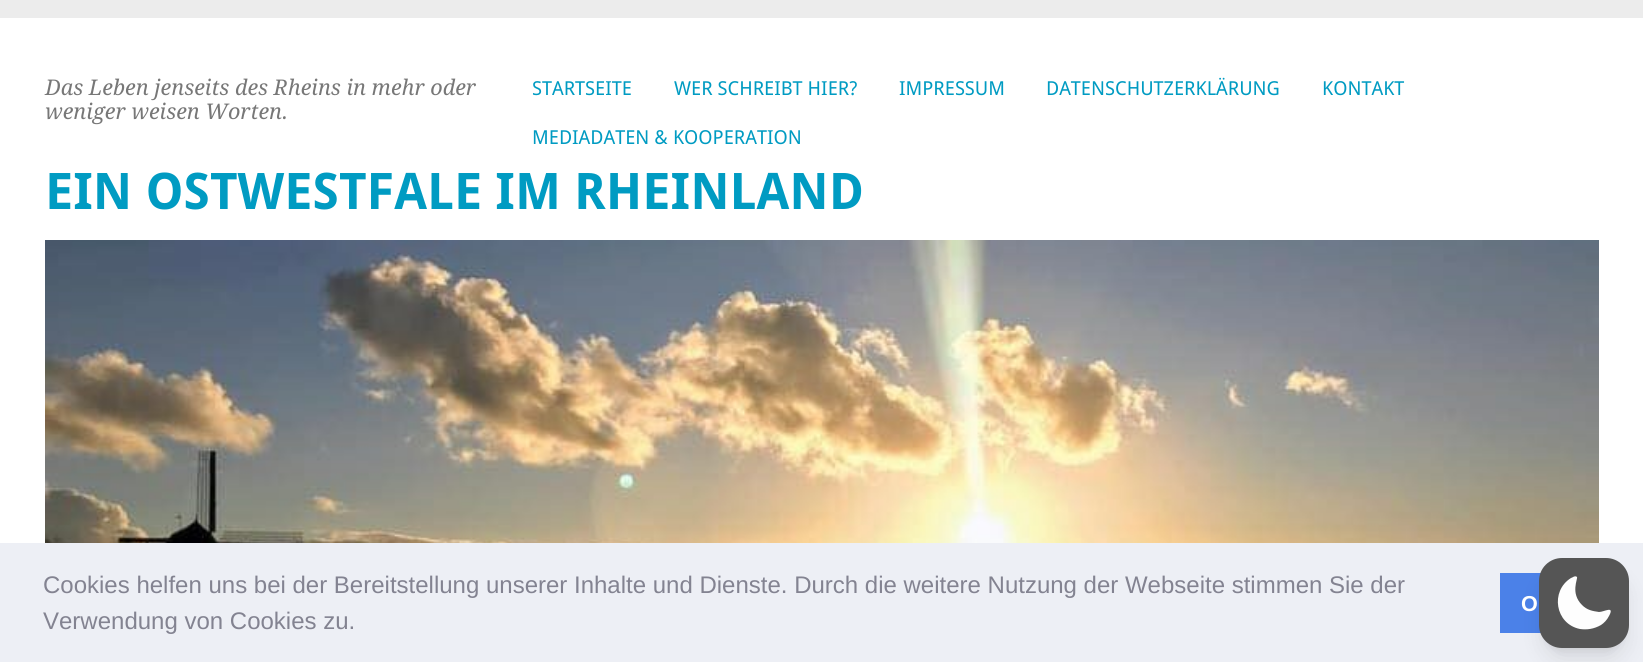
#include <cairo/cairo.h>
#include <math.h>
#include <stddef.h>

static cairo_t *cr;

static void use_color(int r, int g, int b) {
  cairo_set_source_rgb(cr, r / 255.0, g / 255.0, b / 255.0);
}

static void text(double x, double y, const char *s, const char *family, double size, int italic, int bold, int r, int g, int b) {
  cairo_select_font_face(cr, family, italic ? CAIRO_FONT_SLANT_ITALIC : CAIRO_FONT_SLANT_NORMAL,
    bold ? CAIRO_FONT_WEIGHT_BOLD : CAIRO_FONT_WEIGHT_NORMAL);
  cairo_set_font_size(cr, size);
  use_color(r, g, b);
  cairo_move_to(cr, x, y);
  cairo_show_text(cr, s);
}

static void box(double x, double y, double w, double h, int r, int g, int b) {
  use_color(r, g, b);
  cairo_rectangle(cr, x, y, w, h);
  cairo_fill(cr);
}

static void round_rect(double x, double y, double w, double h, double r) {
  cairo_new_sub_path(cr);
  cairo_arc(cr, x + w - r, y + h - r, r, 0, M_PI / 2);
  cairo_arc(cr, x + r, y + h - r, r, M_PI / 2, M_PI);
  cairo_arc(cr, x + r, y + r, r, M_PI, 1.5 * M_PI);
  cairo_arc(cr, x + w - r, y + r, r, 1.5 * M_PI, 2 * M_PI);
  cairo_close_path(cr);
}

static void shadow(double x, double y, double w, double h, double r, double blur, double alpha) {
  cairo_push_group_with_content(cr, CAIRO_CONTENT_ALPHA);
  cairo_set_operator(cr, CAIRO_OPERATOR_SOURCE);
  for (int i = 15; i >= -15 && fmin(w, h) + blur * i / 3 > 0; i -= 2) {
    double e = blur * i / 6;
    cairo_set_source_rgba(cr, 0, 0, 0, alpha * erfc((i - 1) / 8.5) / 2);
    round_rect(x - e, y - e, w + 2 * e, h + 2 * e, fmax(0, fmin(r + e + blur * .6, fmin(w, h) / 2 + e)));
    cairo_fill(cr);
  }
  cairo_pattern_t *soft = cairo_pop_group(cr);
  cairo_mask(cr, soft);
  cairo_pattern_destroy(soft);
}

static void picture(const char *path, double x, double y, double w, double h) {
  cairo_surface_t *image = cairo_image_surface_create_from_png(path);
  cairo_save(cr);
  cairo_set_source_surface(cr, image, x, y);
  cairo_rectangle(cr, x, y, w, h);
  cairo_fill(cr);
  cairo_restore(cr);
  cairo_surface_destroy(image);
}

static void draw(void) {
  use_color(236, 236, 236);
  cairo_paint(cr);
  box(0, 18, 1643, 525, 255, 255, 255);
  picture("img_01.png", 45, 240, 1554, 303);
  box(0, 543, 1643, 119, 237, 239, 245);
  box(1500, 573, 41, 60, 75, 129, 232);
  use_color(0, 0, 0);
  shadow(1545, 570, 78, 78, 17, 4.5, 0.1);
  shadow(1544, 578, 81, 81, 18, 11, 0.1);
  use_color(85, 85, 85);
  round_rect(1539, 558, 90, 90, 23);
  cairo_fill(cr);
  use_color(254, 254, 254);
  cairo_set_fill_rule(cr, CAIRO_FILL_RULE_EVEN_ODD);
  cairo_new_path(cr);
  cairo_move_to(cr, 1577, 577);
  cairo_curve_to(cr, 1578, 579, 1570, 593, 1582, 605);
  cairo_curve_to(cr, 1587, 610, 1592, 611, 1599, 612);
  cairo_curve_to(cr, 1604, 612, 1615, 605, 1609, 616);
  cairo_curve_to(cr, 1607, 620, 1604, 623, 1601, 625);
  cairo_curve_to(cr, 1594, 629, 1587, 630, 1580, 629);
  cairo_curve_to(cr, 1555, 624, 1550, 591, 1571, 578);
  cairo_curve_to(cr, 1572, 578, 1575, 575, 1577, 577);
  cairo_close_path(cr);
  cairo_fill(cr);
  text(45, 95, "Das Leben jenseits des Rheins in mehr oder", "Droid Serif", 21.6, 1, 0, 119, 119, 119);
  text(45, 119, "weniger weisen Worten.", "Droid Serif", 21.6, 1, 0, 119, 119, 119);
  text(45, 209, "EIN OSTWESTFALE IM RHEINLAND", "Droid Sans", 50.4, 0, 1, 0, 155, 194);
  text(532, 95, "STARTSEITE", "Droid Sans", 19.25, 0, 0, 0, 155, 194);
  text(674, 95, "WER SCHREIBT HIER?", "Droid Sans", 19.25, 0, 0, 0, 155, 194);
  text(899, 95, "IMPRESSUM", "Droid Sans", 19.25, 0, 0, 0, 155, 194);
  text(1046, 95, "DATENSCHUTZERKLÄRUNG", "Droid Sans", 19.25, 0, 0, 0, 155, 194);
  text(1322, 95, "KONTAKT", "Droid Sans", 19.25, 0, 0, 0, 155, 194);
  text(532, 144, "MEDIADATEN & KOOPERATION", "Droid Sans", 19.25, 0, 0, 0, 155, 194);
  text(43, 593, "Cookies helfen uns bei der Bereitstellung unserer Inhalte und Dienste. Durch die weitere Nutzung der Webseite stimmen Sie der", "Liberation Sans", 24, 0, 0, 131, 131, 145);
  text(43, 629, "Verwendung von Cookies zu.", "Liberation Sans", 24, 0, 0, 131, 131, 145);
  text(1521, 611, "O", "Liberation Sans", 21.6, 0, 1, 255, 255, 255);
}

int main(void) {
  cairo_surface_t *surface = cairo_image_surface_create(CAIRO_FORMAT_RGB24, 1643, 662);
  cr = cairo_create(surface);
  cairo_font_options_t *options = cairo_font_options_create();
  cairo_font_options_set_hint_metrics(options, CAIRO_HINT_METRICS_OFF);
  cairo_font_options_set_hint_style(options, CAIRO_HINT_STYLE_NONE);
  cairo_set_font_options(cr, options);
  cairo_set_miter_limit(cr, 4);
  draw();
  cairo_surface_write_to_png(surface, "out.png");
  cairo_font_options_destroy(options);
  cairo_destroy(cr);
  cairo_surface_destroy(surface);
  return 0;
}
